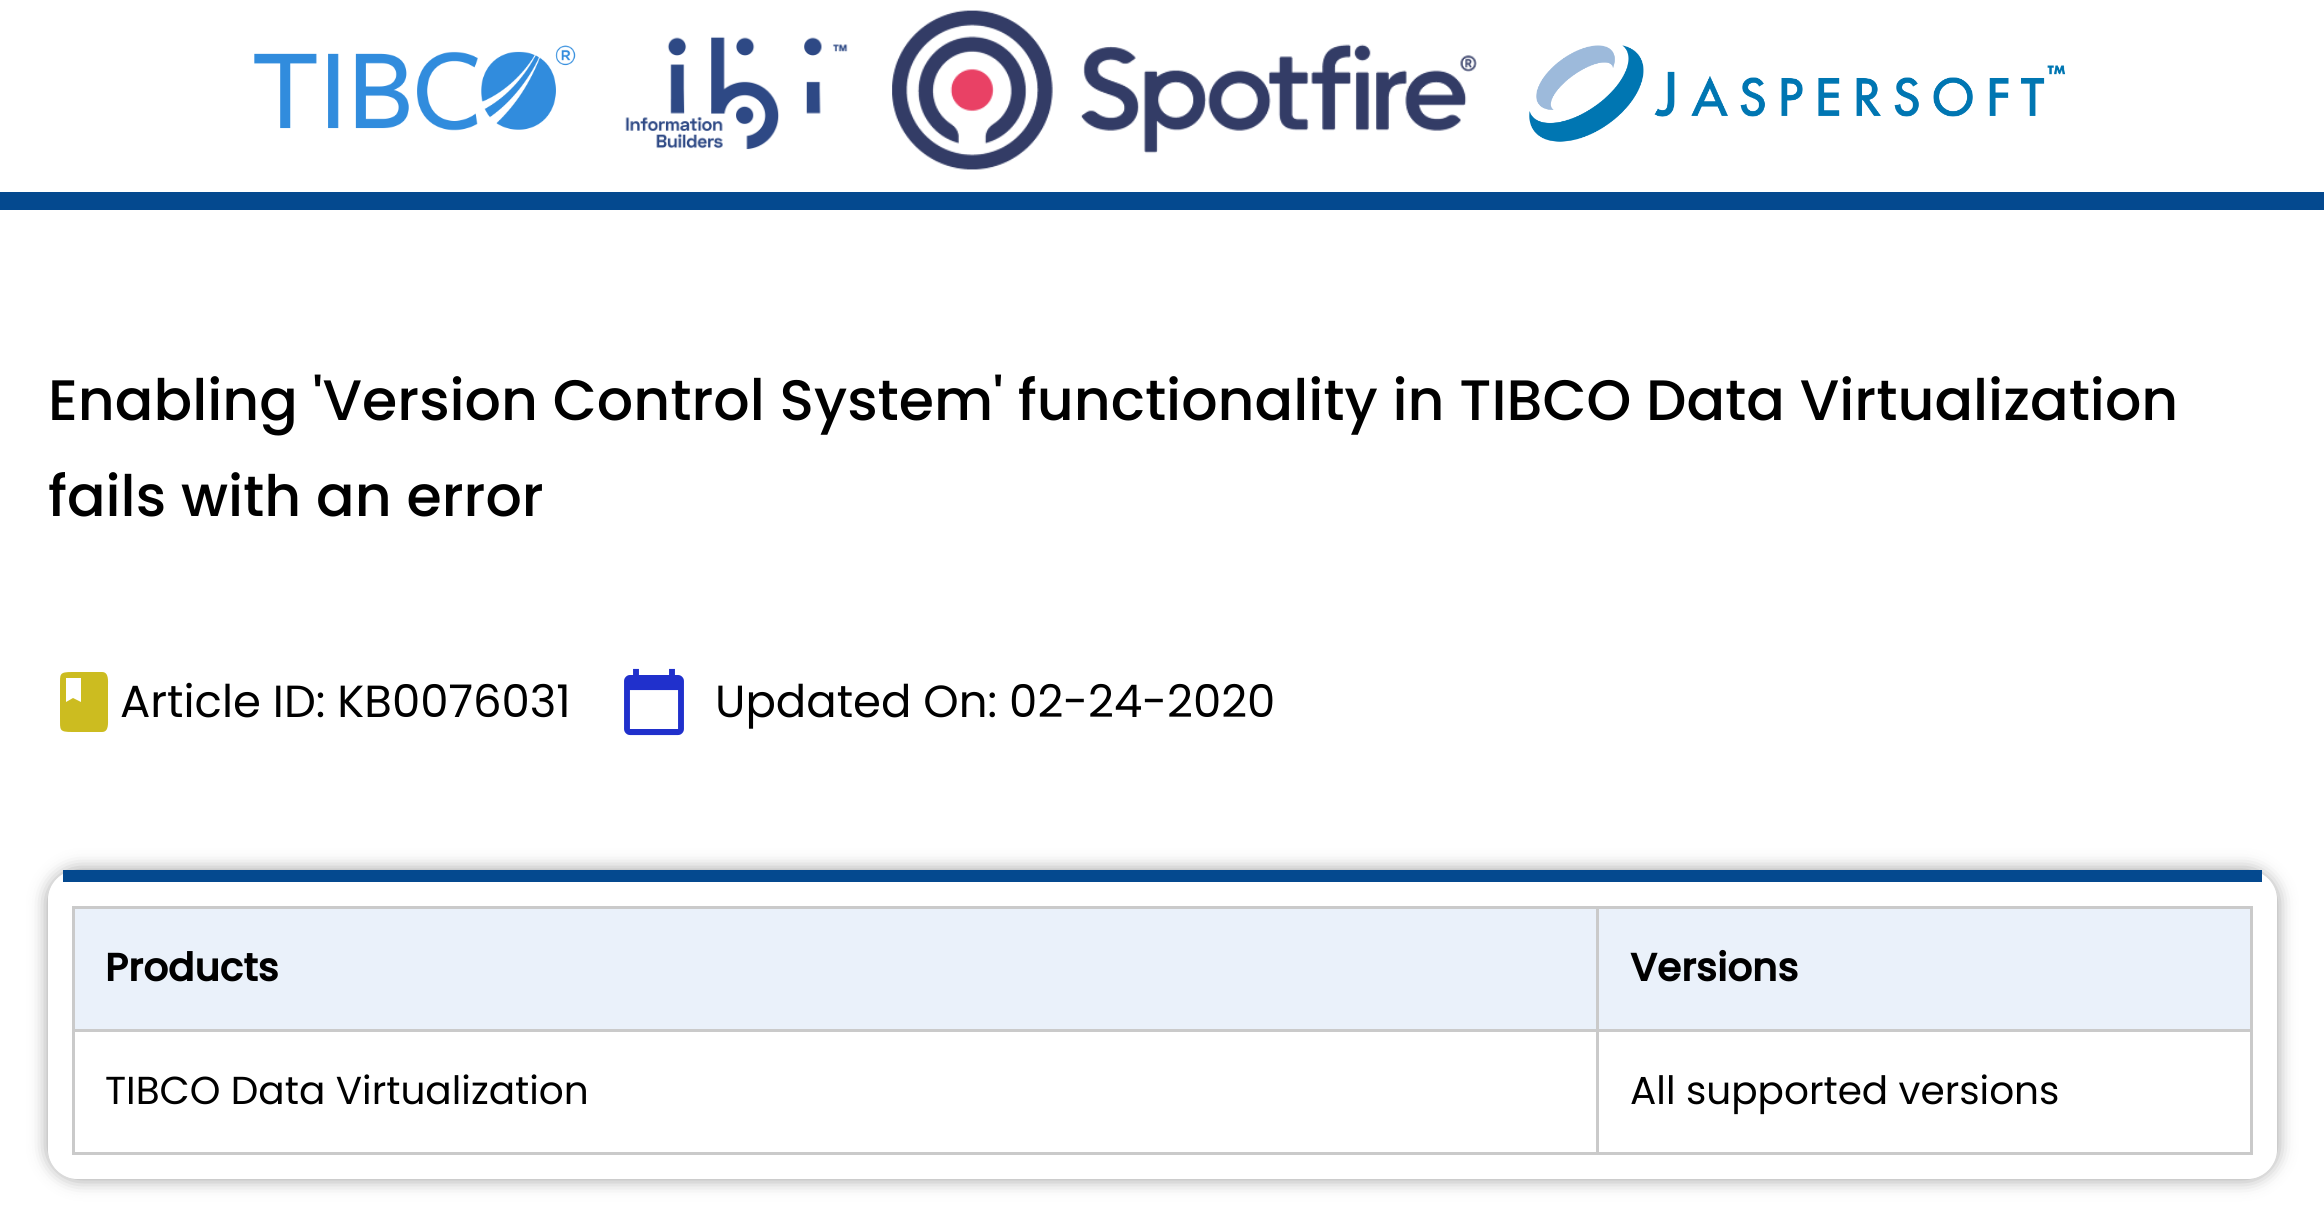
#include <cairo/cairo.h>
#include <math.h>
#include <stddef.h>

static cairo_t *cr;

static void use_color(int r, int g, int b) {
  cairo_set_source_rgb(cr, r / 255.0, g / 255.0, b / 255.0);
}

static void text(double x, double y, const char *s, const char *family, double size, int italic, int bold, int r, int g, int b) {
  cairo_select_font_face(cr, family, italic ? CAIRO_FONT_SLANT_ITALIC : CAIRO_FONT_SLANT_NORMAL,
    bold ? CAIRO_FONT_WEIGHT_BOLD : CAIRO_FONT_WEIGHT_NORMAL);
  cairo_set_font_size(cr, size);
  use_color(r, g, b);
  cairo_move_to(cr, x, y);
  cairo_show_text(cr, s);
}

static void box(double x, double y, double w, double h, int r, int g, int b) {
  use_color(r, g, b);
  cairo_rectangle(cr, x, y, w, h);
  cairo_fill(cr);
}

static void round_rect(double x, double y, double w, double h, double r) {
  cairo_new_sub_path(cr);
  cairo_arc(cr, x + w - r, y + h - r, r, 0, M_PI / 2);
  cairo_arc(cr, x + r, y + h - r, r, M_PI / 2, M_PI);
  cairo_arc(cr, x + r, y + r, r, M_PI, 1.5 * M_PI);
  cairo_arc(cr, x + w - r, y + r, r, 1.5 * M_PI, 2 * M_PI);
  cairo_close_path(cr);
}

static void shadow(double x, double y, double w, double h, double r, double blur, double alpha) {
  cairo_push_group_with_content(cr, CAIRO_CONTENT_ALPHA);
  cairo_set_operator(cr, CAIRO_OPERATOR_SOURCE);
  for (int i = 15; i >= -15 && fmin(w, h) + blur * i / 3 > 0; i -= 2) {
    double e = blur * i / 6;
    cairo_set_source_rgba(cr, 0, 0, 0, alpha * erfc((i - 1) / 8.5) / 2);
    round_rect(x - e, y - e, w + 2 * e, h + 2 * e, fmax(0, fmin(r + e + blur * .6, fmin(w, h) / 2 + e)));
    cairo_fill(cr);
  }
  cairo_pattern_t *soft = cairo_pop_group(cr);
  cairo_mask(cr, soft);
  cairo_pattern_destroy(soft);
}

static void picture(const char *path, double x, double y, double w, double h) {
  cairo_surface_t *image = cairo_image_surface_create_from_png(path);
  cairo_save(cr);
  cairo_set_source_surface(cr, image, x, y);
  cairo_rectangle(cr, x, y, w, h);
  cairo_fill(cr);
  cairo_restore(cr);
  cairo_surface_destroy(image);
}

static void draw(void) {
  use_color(255, 255, 255);
  cairo_paint(cr);
  picture("img_01.png", 0, 10, 2324, 200);
  use_color(204, 188, 32);
  cairo_new_path(cr);
  cairo_move_to(cr, 66, 678);
  cairo_line_to(cr, 66, 702);
  cairo_line_to(cr, 73, 698);
  cairo_line_to(cr, 81, 702);
  cairo_line_to(cr, 81, 678);
  cairo_close_path(cr);
  cairo_move_to(cr, 102, 672);
  cairo_curve_to(cr, 109, 672, 108, 681, 108, 686);
  cairo_line_to(cr, 108, 718);
  cairo_curve_to(cr, 108, 723, 109, 732, 102, 732);
  cairo_line_to(cr, 72, 732);
  cairo_curve_to(cr, 59, 732, 60, 730, 60, 718);
  cairo_line_to(cr, 60, 686);
  cairo_curve_to(cr, 60, 674, 59, 672, 72, 672);
  cairo_close_path(cr);
  cairo_fill(cr);
  picture("img_02.png", 624, 668, 60, 68);
  cairo_save(cr);
  cairo_set_fill_rule(cr, CAIRO_FILL_RULE_EVEN_ODD);
  cairo_new_path(cr);
  cairo_move_to(cr, 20, 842);
  cairo_line_to(cr, 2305, 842);
  cairo_line_to(cr, 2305, 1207);
  cairo_line_to(cr, 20, 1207);
  cairo_close_path(cr);
  cairo_move_to(cr, 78, 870);
  cairo_line_to(cr, 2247, 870);
  cairo_curve_to(cr, 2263.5, 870, 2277, 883.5, 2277, 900);
  cairo_line_to(cr, 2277, 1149);
  cairo_curve_to(cr, 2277, 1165.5, 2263.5, 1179, 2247, 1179);
  cairo_line_to(cr, 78, 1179);
  cairo_curve_to(cr, 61.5, 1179, 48, 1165.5, 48, 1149);
  cairo_line_to(cr, 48, 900);
  cairo_curve_to(cr, 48, 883.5, 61.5, 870, 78, 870);
  cairo_close_path(cr);
  cairo_clip(cr);
  use_color(0, 0, 0);
  shadow(48, 870, 2229, 309, 30, 9, 0.4);
  cairo_restore(cr);
  box(63, 870, 2199, 12, 4, 73, 143);
  box(75, 909, 2175, 120, 234, 241, 250);
  box(1596, 906, 657, 3, 202, 202, 202);
  box(1596, 1029, 657, 3, 202, 202, 202);
  box(2250, 1029, 3, 126, 202, 202, 202);
  box(1596, 1152, 657, 3, 202, 202, 202);
  box(1596, 1029, 3, 126, 202, 202, 202);
  box(72, 1029, 1527, 3, 202, 202, 202);
  box(1596, 906, 3, 126, 202, 202, 202);
  box(72, 906, 1527, 3, 202, 202, 202);
  box(72, 1152, 1527, 3, 202, 202, 202);
  box(72, 1029, 3, 126, 202, 202, 202);
  box(72, 906, 3, 126, 202, 202, 202);
  box(2250, 906, 3, 126, 202, 202, 202);
  text(48, 420, "Enabling 'Version Control System' functionality in TIBCO Data Virtualization", "Poppins Medium", 57, 0, 0, 0, 0, 0);
  text(48, 516, "fails with an error", "Poppins Medium", 57, 0, 0, 0, 0, 0);
  text(120, 717, "Article ID: KB0076031", "Poppins", 45, 0, 0, 0, 0, 0);
  text(715, 717, "Updated On: 02-24-2020", "Poppins", 45, 0, 0, 0, 0, 0);
  text(105, 981, "Products", "Poppins", 39, 0, 1, 0, 0, 0);
  text(1630, 981, "Versions", "Poppins", 39, 0, 1, 0, 0, 0);
  text(105, 1104, "TIBCO Data Virtualization", "Poppins", 39, 0, 0, 0, 0, 0);
  text(1630, 1104, "All supported versions", "Poppins", 39, 0, 0, 0, 0, 0);
}

int main(void) {
  cairo_surface_t *surface = cairo_image_surface_create(CAIRO_FORMAT_RGB24, 2324, 1215);
  cr = cairo_create(surface);
  cairo_font_options_t *options = cairo_font_options_create();
  cairo_font_options_set_hint_metrics(options, CAIRO_HINT_METRICS_OFF);
  cairo_font_options_set_hint_style(options, CAIRO_HINT_STYLE_NONE);
  cairo_set_font_options(cr, options);
  cairo_set_miter_limit(cr, 4);
  draw();
  cairo_surface_write_to_png(surface, "out.png");
  cairo_font_options_destroy(options);
  cairo_destroy(cr);
  cairo_surface_destroy(surface);
  return 0;
}
